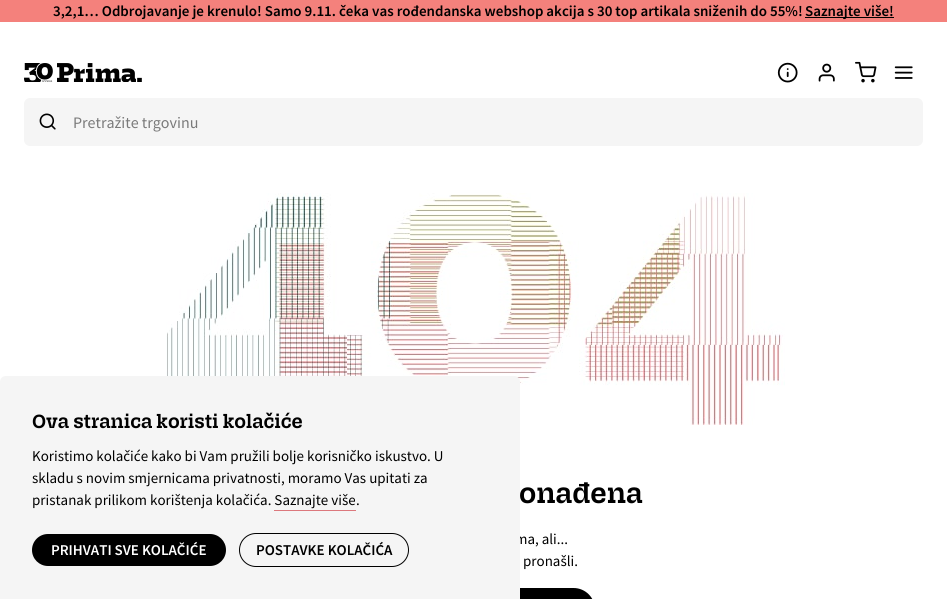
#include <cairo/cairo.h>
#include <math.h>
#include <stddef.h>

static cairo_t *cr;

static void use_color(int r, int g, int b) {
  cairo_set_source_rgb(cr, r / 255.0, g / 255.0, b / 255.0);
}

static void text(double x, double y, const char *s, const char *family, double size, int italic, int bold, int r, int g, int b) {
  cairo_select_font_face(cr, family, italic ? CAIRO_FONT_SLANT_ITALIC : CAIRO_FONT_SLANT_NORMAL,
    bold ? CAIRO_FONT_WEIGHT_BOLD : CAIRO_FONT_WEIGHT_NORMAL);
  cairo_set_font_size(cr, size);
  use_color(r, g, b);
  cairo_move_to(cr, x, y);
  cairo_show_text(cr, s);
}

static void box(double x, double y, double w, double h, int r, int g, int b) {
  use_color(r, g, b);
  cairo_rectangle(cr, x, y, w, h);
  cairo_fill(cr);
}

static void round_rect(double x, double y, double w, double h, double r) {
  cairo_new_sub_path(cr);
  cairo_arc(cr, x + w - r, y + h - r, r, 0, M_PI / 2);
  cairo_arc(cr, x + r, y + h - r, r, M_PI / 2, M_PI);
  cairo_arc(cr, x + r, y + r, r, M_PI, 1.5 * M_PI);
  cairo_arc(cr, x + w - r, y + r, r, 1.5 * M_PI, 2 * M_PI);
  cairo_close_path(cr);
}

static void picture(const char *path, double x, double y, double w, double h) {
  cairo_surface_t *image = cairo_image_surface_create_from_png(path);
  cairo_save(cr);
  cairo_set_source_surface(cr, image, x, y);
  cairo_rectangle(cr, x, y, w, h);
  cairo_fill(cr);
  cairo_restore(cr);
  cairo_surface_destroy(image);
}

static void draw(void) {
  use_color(255, 255, 255);
  cairo_paint(cr);
  box(0, 0, 947, 22, 244, 129, 124);
  box(805, 17, 89, 1, 0, 0, 0);
  picture("img_01.png", 24, 63, 118, 19);
  picture("img_02.png", 777, 62, 21, 21);
  picture("img_03.png", 818, 63, 17, 19);
  picture("img_04.png", 855, 61, 22, 22);
  picture("img_05.png", 894, 66, 19, 13);
  use_color(245, 245, 245);
  round_rect(24, 98, 899, 48, 6);
  cairo_fill(cr);
  picture("img_06.png", 39, 113, 17, 17);
  picture("img_07.png", 166, 193, 619, 232);
  use_color(0, 0, 0);
  round_rect(352, 588, 243, 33, 21.5);
  cairo_fill(cr);
  text(53, 16, "3,2,1… Odbrojavanje je krenulo! Samo 9.11. čeka vas rođendanska webshop akcija s 30 top artikala sniženih do 55%!", "Source Sans Pro SemiBold", 15, 0, 0, 0, 0, 0);
  text(805, 16, "Saznajte više!", "Source Sans Pro SemiBold", 15, 0, 0, 0, 0, 0);
  text(73, 128, "Pretražite trgovinu", "Source Sans Pro", 16, 0, 0, 122, 122, 122);
  text(519, 503, "onađena", "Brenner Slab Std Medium", 30, 0, 0, 0, 0, 0);
  text(515, 544, "ma, ali...", "Source Sans Pro", 15, 0, 0, 0, 0, 0);
  use_color(245, 245, 245);
  cairo_new_path(cr);
  cairo_move_to(cr, 6, 376);
  cairo_line_to(cr, 514, 376);
  cairo_curve_to(cr, 517.5, 376, 520, 378.5, 520, 382);
  cairo_line_to(cr, 520, 599);
  cairo_line_to(cr, 0, 599);
  cairo_line_to(cr, 0, 382);
  cairo_curve_to(cr, 0, 378.5, 2.5, 376, 6, 376);
  cairo_close_path(cr);
  cairo_fill(cr);
  box(274, 510, 82, 1, 220, 120, 125);
  round_rect(239.5, 533.5, 169, 33, 16.5);
  use_color(0, 0, 0);
  cairo_set_line_width(cr, 1);
  cairo_stroke(cr);
  text(256, 555, "POSTAVKE KOLAČIĆA", "Source Sans Pro SemiBold", 15, 0, 0, 0, 0, 0);
  round_rect(32, 534, 194, 32, 16);
  cairo_fill(cr);
  text(51, 555, "PRIHVATI SVE KOLAČIĆE", "Source Sans Pro SemiBold", 15, 0, 0, 255, 255, 255);
  text(356, 505, ".", "Source Sans Pro", 15, 0, 0, 0, 0, 0);
  text(32, 505, "pristanak prilikom korištenja kolačića. Saznajte više", "Source Sans Pro", 15, 0, 0, 0, 0, 0);
  text(32, 483, "skladu s novim smjernicama privatnosti, moramo Vas upitati za", "Source Sans Pro", 15, 0, 0, 0, 0, 0);
  text(32, 461, "Koristimo kolačiće kako bi Vam pružili bolje korisničko iskustvo. U", "Source Sans Pro", 15, 0, 0, 0, 0, 0);
  text(32, 428, "Ova stranica koristi kolačiće", "Brenner Slab Std Medium", 20.4, 0, 0, 0, 0, 0);
  text(523, 566, "pronašli.", "Source Sans Pro", 15, 0, 0, 0, 0, 0);
}

int main(void) {
  cairo_surface_t *surface = cairo_image_surface_create(CAIRO_FORMAT_RGB24, 947, 599);
  cr = cairo_create(surface);
  cairo_font_options_t *options = cairo_font_options_create();
  cairo_font_options_set_hint_metrics(options, CAIRO_HINT_METRICS_OFF);
  cairo_font_options_set_hint_style(options, CAIRO_HINT_STYLE_NONE);
  cairo_set_font_options(cr, options);
  cairo_set_miter_limit(cr, 4);
  draw();
  cairo_surface_write_to_png(surface, "out.png");
  cairo_font_options_destroy(options);
  cairo_destroy(cr);
  cairo_surface_destroy(surface);
  return 0;
}
